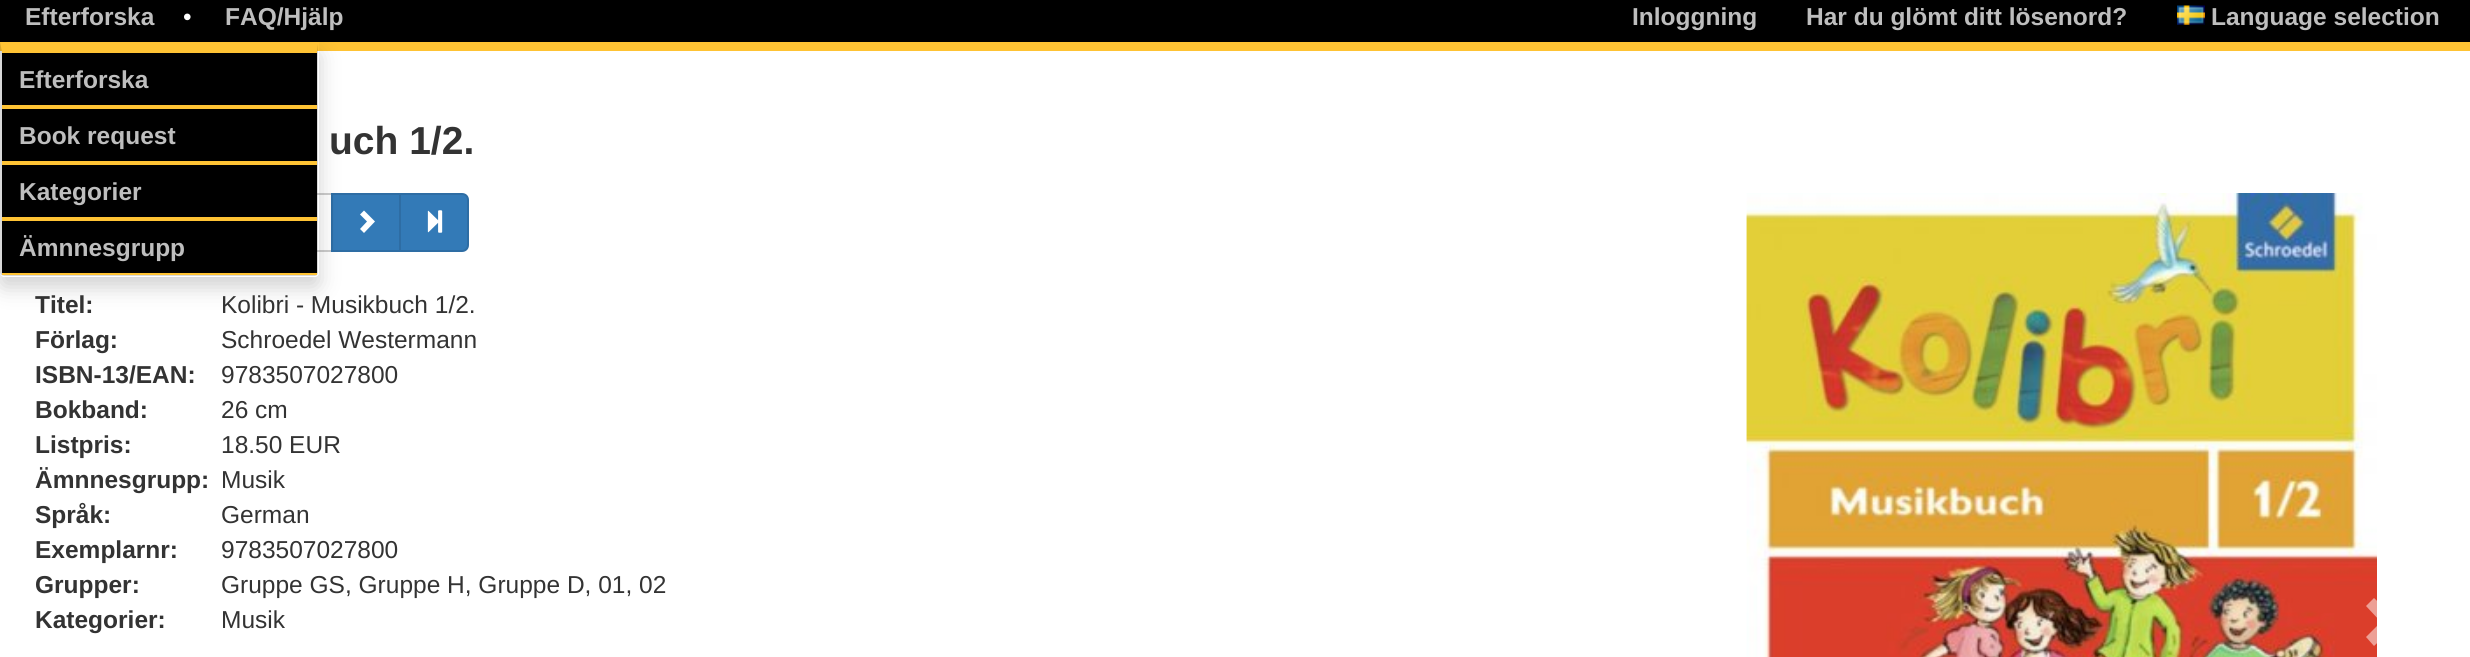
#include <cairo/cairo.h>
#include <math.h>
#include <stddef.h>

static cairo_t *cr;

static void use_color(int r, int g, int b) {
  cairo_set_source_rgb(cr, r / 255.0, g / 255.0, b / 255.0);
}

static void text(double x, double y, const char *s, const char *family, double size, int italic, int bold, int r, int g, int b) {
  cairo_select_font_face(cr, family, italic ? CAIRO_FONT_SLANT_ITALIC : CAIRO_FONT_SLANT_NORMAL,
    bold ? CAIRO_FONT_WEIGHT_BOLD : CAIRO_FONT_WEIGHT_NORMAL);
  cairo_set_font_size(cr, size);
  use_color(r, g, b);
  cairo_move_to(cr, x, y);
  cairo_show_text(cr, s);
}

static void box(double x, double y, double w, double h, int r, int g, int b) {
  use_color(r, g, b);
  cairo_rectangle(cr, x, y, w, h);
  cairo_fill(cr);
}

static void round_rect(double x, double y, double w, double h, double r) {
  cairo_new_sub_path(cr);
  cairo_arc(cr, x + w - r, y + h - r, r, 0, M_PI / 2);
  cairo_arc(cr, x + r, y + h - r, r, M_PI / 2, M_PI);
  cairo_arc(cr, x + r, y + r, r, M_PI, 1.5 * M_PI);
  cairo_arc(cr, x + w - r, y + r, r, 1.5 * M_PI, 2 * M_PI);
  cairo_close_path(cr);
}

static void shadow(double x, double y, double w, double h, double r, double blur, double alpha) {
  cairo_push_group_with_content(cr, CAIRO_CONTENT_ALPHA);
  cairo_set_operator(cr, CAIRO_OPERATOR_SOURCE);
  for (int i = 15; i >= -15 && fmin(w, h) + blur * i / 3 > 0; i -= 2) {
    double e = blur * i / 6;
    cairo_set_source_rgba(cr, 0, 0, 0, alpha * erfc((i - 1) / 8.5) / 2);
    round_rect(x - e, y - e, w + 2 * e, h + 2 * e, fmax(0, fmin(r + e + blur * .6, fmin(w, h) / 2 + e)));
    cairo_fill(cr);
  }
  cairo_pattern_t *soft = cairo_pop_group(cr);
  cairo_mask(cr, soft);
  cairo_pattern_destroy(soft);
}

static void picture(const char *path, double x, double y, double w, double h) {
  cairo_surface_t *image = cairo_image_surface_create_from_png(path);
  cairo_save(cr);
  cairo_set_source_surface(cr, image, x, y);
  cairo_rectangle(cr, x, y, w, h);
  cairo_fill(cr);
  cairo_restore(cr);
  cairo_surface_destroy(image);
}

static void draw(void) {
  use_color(255, 255, 255);
  cairo_paint(cr);
  box(0, 0, 2470, 42, 0, 0, 0);
  box(0, 42, 2470, 9, 255, 195, 52);
  cairo_rectangle(cr, 173, 194, 159, 57);
  use_color(204, 204, 204);
  cairo_stroke(cr);
  use_color(51, 122, 183);
  cairo_rectangle(cr, 332, 194, 68, 57);
  cairo_fill_preserve(cr);
  use_color(46, 109, 164);
  cairo_stroke(cr);
  cairo_save(cr);
  cairo_set_fill_rule(cr, CAIRO_FILL_RULE_EVEN_ODD);
  cairo_new_path(cr);
  cairo_move_to(cr, 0, 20);
  cairo_line_to(cr, 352, 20);
  cairo_line_to(cr, 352, 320);
  cairo_line_to(cr, 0, 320);
  cairo_close_path(cr);
  cairo_move_to(cr, 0, 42);
  cairo_line_to(cr, 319, 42);
  cairo_line_to(cr, 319, 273);
  cairo_curve_to(cr, 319, 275, 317, 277, 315, 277);
  cairo_line_to(cr, 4, 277);
  cairo_curve_to(cr, 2, 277, 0, 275, 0, 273);
  cairo_close_path(cr);
  cairo_clip(cr);
  use_color(0, 0, 0);
  shadow(0, 53, 319, 234, 4, 10.5, 0.18);
  cairo_restore(cr);
  use_color(255, 195, 52);
  cairo_new_path(cr);
  cairo_move_to(cr, 0, 42);
  cairo_line_to(cr, 2, 52);
  cairo_line_to(cr, 2, 51);
  cairo_line_to(cr, 317, 51);
  cairo_line_to(cr, 318, 44);
  cairo_line_to(cr, 318, 42);
  cairo_close_path(cr);
  cairo_fill(cr);
  cairo_set_source_rgba(cr, 0, 0, 0, 0.15);
  cairo_new_path(cr);
  cairo_move_to(cr, 318, 44);
  cairo_line_to(cr, 318, 273);
  cairo_line_to(cr, 317, 275);
  cairo_line_to(cr, 316, 274);
  cairo_line_to(cr, 317, 273);
  cairo_line_to(cr, 317, 51);
  cairo_close_path(cr);
  cairo_fill(cr);
  cairo_new_path(cr);
  cairo_move_to(cr, 317, 275);
  cairo_line_to(cr, 315, 276);
  cairo_line_to(cr, 4, 276);
  cairo_line_to(cr, 1, 275);
  cairo_line_to(cr, 2, 274);
  cairo_line_to(cr, 4, 275);
  cairo_line_to(cr, 315, 275);
  cairo_line_to(cr, 316, 274);
  cairo_close_path(cr);
  cairo_fill(cr);
  cairo_new_path(cr);
  cairo_move_to(cr, 0, 42);
  cairo_line_to(cr, 0, 273);
  cairo_line_to(cr, 1, 275);
  cairo_line_to(cr, 2, 274);
  cairo_line_to(cr, 2, 273);
  cairo_line_to(cr, 2, 52);
  cairo_close_path(cr);
  cairo_fill(cr);
  box(2, 53, 315, 52, 0, 0, 0);
  box(2, 51, 315, 2, 255, 195, 52);
  box(2, 105, 315, 4, 255, 195, 52);
  box(2, 109, 315, 52, 0, 0, 0);
  box(2, 161, 315, 4, 255, 195, 52);
  box(2, 165, 315, 52, 0, 0, 0);
  box(2, 217, 315, 4, 255, 195, 52);
  box(2, 221, 315, 52, 0, 0, 0);
  box(2, 273, 315, 2, 255, 195, 52);
  picture("img_01.png", 2177, 5, 28, 20);
  use_color(255, 255, 255);
  cairo_new_path(cr);
  cairo_move_to(cr, 375, 221.5);
  cairo_line_to(cr, 364, 233);
  cairo_line_to(cr, 360, 229);
  cairo_line_to(cr, 367, 221.5);
  cairo_line_to(cr, 360, 214.5);
  cairo_line_to(cr, 364, 210.5);
  cairo_close_path(cr);
  cairo_fill(cr);
  use_color(51, 122, 183);
  cairo_new_path(cr);
  cairo_move_to(cr, 400, 194);
  cairo_line_to(cr, 462, 194);
  cairo_curve_to(cr, 465.5, 194, 468, 196.5, 468, 200);
  cairo_line_to(cr, 468, 245);
  cairo_curve_to(cr, 468, 248.5, 465.5, 251, 462, 251);
  cairo_line_to(cr, 400, 251);
  cairo_close_path(cr);
  cairo_fill_preserve(cr);
  use_color(46, 109, 164);
  cairo_stroke(cr);
  picture("img_02.png", 427, 210, 16, 23);
  picture("img_03.png", 1746, 193, 631, 464);
  cairo_set_source_rgba(cr, 1, 1, 1, 0.5);
  cairo_new_path(cr);
  cairo_move_to(cr, 2399, 622);
  cairo_line_to(cr, 2374, 646);
  cairo_line_to(cr, 2366, 637);
  cairo_line_to(cr, 2381, 622);
  cairo_line_to(cr, 2366, 606);
  cairo_line_to(cr, 2374, 598);
  cairo_close_path(cr);
  cairo_fill(cr);
  text(25, 25, "Efterforska", "Liberation Sans", 24.5, 0, 1, 190, 190, 190);
  text(19, 88, "Efterforska", "Liberation Sans", 24.5, 0, 1, 190, 190, 190);
  text(19, 144, "Book request", "Liberation Sans", 24.5, 0, 1, 190, 190, 190);
  text(19, 200, "Kategorier", "Liberation Sans", 24.5, 0, 1, 190, 190, 190);
  text(19, 256, "Ämnnesgrupp", "Liberation Sans", 24.5, 0, 1, 190, 190, 190);
  text(183, 25, "•", "Liberation Sans", 24.5, 0, 0, 255, 255, 255);
  text(225, 25, "FAQ/Hjälp", "Liberation Sans", 24.5, 0, 1, 190, 190, 190);
  text(1632, 25, "Inloggning", "Liberation Sans", 24.5, 0, 1, 190, 190, 190);
  text(1806, 25, "Har du glömt ditt lösenord?", "Liberation Sans", 24.5, 0, 1, 190, 190, 190);
  text(2211, 25, "Language selection", "Liberation Sans", 24.5, 0, 1, 190, 190, 190);
  text(329, 154, "uch 1/2.", "Liberation Sans", 39, 0, 1, 51, 51, 51);
  text(35, 313, "Titel:", "Liberation Sans", 24.5, 0, 1, 51, 51, 51);
  text(221, 313, "Kolibri - Musikbuch 1/2.", "Liberation Sans", 24.5, 0, 0, 51, 51, 51);
  text(35, 348, "Förlag:", "Liberation Sans", 24.5, 0, 1, 51, 51, 51);
  text(221, 348, "Schroedel Westermann", "Liberation Sans", 24.5, 0, 0, 51, 51, 51);
  text(35, 383, "ISBN-13/EAN:", "Liberation Sans", 24.5, 0, 1, 51, 51, 51);
  text(221, 383, "9783507027800", "Liberation Sans", 24.5, 0, 0, 51, 51, 51);
  text(35, 418, "Bokband:", "Liberation Sans", 24.5, 0, 1, 51, 51, 51);
  text(221, 418, "26 cm", "Liberation Sans", 24.5, 0, 0, 51, 51, 51);
  text(35, 453, "Listpris:", "Liberation Sans", 24.5, 0, 1, 51, 51, 51);
  text(221, 453, "18.50 EUR", "Liberation Sans", 24.5, 0, 0, 51, 51, 51);
  text(35, 488, "Ämnnesgrupp:", "Liberation Sans", 24.5, 0, 1, 51, 51, 51);
  text(221, 488, "Musik", "Liberation Sans", 24.5, 0, 0, 51, 51, 51);
  text(35, 523, "Språk:", "Liberation Sans", 24.5, 0, 1, 51, 51, 51);
  text(221, 523, "German", "Liberation Sans", 24.5, 0, 0, 51, 51, 51);
  text(35, 558, "Exemplarnr:", "Liberation Sans", 24.5, 0, 1, 51, 51, 51);
  text(221, 558, "9783507027800", "Liberation Sans", 24.5, 0, 0, 51, 51, 51);
  text(35, 593, "Grupper:", "Liberation Sans", 24.5, 0, 1, 51, 51, 51);
  text(221, 593, "Gruppe GS, Gruppe H, Gruppe D, 01, 02", "Liberation Sans", 24.5, 0, 0, 51, 51, 51);
  text(35, 628, "Kategorier:", "Liberation Sans", 24.5, 0, 1, 51, 51, 51);
  text(221, 628, "Musik", "Liberation Sans", 24.5, 0, 0, 51, 51, 51);
}

int main(void) {
  cairo_surface_t *surface = cairo_image_surface_create(CAIRO_FORMAT_RGB24, 2470, 657);
  cr = cairo_create(surface);
  cairo_font_options_t *options = cairo_font_options_create();
  cairo_font_options_set_hint_metrics(options, CAIRO_HINT_METRICS_OFF);
  cairo_font_options_set_hint_style(options, CAIRO_HINT_STYLE_NONE);
  cairo_set_font_options(cr, options);
  cairo_set_miter_limit(cr, 4);
  draw();
  cairo_surface_write_to_png(surface, "out.png");
  cairo_font_options_destroy(options);
  cairo_destroy(cr);
  cairo_surface_destroy(surface);
  return 0;
}
